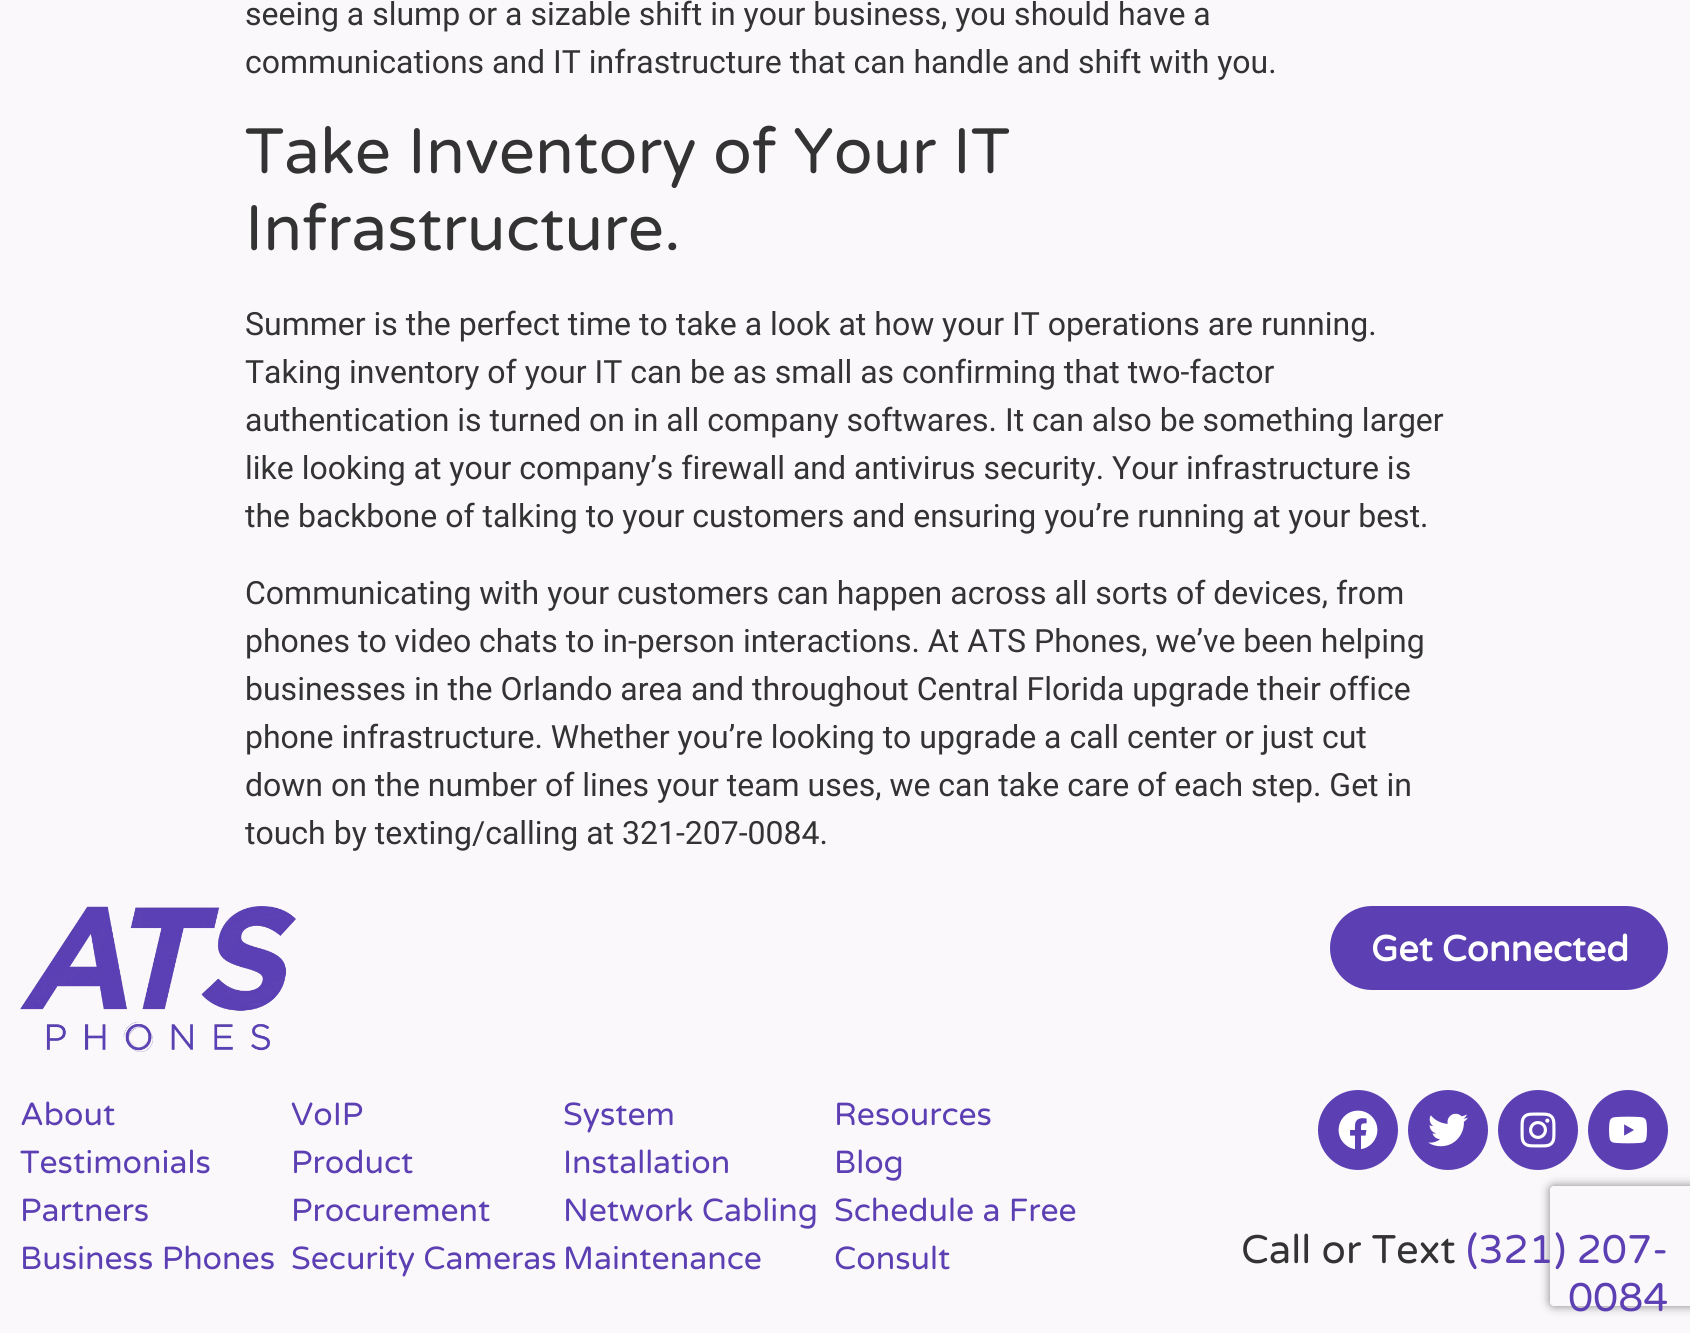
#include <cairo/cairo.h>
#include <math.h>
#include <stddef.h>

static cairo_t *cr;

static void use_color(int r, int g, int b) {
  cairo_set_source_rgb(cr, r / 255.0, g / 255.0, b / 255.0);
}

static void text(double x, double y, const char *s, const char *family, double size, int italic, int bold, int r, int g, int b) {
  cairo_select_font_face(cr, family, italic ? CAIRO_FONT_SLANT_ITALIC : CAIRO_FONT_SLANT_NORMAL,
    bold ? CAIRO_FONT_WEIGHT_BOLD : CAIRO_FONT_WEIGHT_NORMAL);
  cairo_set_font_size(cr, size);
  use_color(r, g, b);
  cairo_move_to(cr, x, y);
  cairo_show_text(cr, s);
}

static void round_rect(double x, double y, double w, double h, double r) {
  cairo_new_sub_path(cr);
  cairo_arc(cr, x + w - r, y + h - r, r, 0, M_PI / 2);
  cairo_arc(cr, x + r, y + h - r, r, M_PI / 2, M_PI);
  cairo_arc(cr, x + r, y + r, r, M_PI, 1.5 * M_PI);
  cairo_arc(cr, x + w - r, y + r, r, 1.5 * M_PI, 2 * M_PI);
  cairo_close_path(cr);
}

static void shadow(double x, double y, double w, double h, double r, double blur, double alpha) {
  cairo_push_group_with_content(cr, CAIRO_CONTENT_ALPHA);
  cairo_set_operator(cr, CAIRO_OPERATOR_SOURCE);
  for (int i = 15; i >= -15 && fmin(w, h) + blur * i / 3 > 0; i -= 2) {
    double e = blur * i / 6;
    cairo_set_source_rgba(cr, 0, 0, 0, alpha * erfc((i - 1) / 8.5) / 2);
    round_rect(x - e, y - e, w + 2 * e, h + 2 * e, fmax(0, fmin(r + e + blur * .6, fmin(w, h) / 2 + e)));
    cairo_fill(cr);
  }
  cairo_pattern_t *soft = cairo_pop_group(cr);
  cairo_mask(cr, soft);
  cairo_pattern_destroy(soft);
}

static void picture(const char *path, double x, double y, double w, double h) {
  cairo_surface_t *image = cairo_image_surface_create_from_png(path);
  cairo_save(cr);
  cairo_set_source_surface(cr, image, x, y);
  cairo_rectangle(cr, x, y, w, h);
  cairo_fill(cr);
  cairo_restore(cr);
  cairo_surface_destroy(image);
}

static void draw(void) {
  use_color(250, 248, 251);
  cairo_paint(cr);
  picture("img_01.png", 20, 906, 276, 146);
  use_color(91, 63, 179);
  round_rect(1330, 906, 338, 84, 42);
  cairo_fill(cr);
  cairo_arc(cr, 1358, 1130, 40, 0, 2 * M_PI);
  cairo_fill(cr);
  picture("img_02.png", 1338, 1110, 40, 40);
  cairo_arc(cr, 1448, 1130, 40, 0, 2 * M_PI);
  cairo_fill(cr);
  picture("img_03.png", 1428, 1113, 40, 34);
  cairo_arc(cr, 1538, 1130, 40, 0, 2 * M_PI);
  cairo_fill(cr);
  picture("img_04.png", 1520, 1112, 36, 36);
  cairo_arc(cr, 1628, 1130, 40, 0, 2 * M_PI);
  cairo_fill(cr);
  picture("img_05.png", 1609, 1116, 38, 28);
  cairo_save(cr);
  cairo_set_fill_rule(cr, CAIRO_FILL_RULE_EVEN_ODD);
  cairo_new_path(cr);
  cairo_move_to(cr, 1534, 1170);
  cairo_line_to(cr, 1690, 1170);
  cairo_line_to(cr, 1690, 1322);
  cairo_line_to(cr, 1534, 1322);
  cairo_close_path(cr);
  cairo_move_to(cr, 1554, 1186);
  cairo_line_to(cr, 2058, 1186);
  cairo_curve_to(cr, 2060, 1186, 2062, 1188, 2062, 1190);
  cairo_line_to(cr, 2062, 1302);
  cairo_curve_to(cr, 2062, 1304, 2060, 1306, 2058, 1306);
  cairo_line_to(cr, 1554, 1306);
  cairo_curve_to(cr, 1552, 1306, 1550, 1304, 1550, 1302);
  cairo_line_to(cr, 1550, 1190);
  cairo_curve_to(cr, 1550, 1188, 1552, 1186, 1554, 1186);
  cairo_close_path(cr);
  cairo_clip(cr);
  use_color(128, 128, 128);
  shadow(1550, 1186, 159, 120, 4, 5, 1);
  cairo_restore(cr);
  text(245, 25, "seeing a slump or a sizable shift in your business, you should have a", "Roboto", 32, 0, 0, 51, 51, 51);
  text(245, 73, "communications and IT infrastructure that can handle and shift with you.", "Roboto", 32, 0, 0, 51, 51, 51);
  text(245, 173, "Take Inventory of Your IT", "Varela Round", 64, 0, 0, 51, 51, 51);
  text(245, 250, "Infrastructure.", "Varela Round", 64, 0, 0, 51, 51, 51);
  text(245, 335, "Summer is the perfect time to take a look at how your IT operations are running.", "Roboto", 32, 0, 0, 51, 51, 51);
  text(245, 383, "Taking inventory of your IT can be as small as confirming that two-factor", "Roboto", 32, 0, 0, 51, 51, 51);
  text(245, 431, "authentication is turned on in all company softwares. It can also be something larger", "Roboto", 32, 0, 0, 51, 51, 51);
  text(245, 479, "like looking at your company’s firewall and antivirus security. Your infrastructure is", "Roboto", 32, 0, 0, 51, 51, 51);
  text(245, 527, "the backbone of talking to your customers and ensuring you’re running at your best.", "Roboto", 32, 0, 0, 51, 51, 51);
  text(245, 604, "Communicating with your customers can happen across all sorts of devices, from", "Roboto", 32, 0, 0, 51, 51, 51);
  text(245, 652, "phones to video chats to in-person interactions. At ATS Phones, we’ve been helping", "Roboto", 32, 0, 0, 51, 51, 51);
  text(245, 700, "businesses in the Orlando area and throughout Central Florida upgrade their office", "Roboto", 32, 0, 0, 51, 51, 51);
  text(245, 748, "phone infrastructure. Whether you’re looking to upgrade a call center or just cut", "Roboto", 32, 0, 0, 51, 51, 51);
  text(245, 796, "down on the number of lines your team uses, we can take care of each step. Get in", "Roboto", 32, 0, 0, 51, 51, 51);
  text(245, 844, "touch by texting/calling at 321-207-0084.", "Roboto", 32, 0, 0, 51, 51, 51);
  text(20, 1125, "About", "Varela Round", 32, 0, 0, 91, 63, 179);
  text(291, 1125, "VoIP", "Varela Round", 32, 0, 0, 91, 63, 179);
  text(563, 1125, "System", "Varela Round", 32, 0, 0, 91, 63, 179);
  text(563, 1173, "Installation", "Varela Round", 32, 0, 0, 91, 63, 179);
  text(834, 1125, "Resources", "Varela Round", 32, 0, 0, 91, 63, 179);
  text(20, 1173, "Testimonials", "Varela Round", 32, 0, 0, 91, 63, 179);
  text(291, 1173, "Product", "Varela Round", 32, 0, 0, 91, 63, 179);
  text(291, 1221, "Procurement", "Varela Round", 32, 0, 0, 91, 63, 179);
  text(834, 1173, "Blog", "Varela Round", 32, 0, 0, 91, 63, 179);
  text(20, 1221, "Partners", "Varela Round", 32, 0, 0, 91, 63, 179);
  text(563, 1221, "Network Cabling", "Varela Round", 32, 0, 0, 91, 63, 179);
  text(834, 1221, "Schedule a Free", "Varela Round", 32, 0, 0, 91, 63, 179);
  text(834, 1269, "Consult", "Varela Round", 32, 0, 0, 91, 63, 179);
  text(20, 1269, "Business Phones", "Varela Round", 32, 0, 0, 91, 63, 179);
  text(291, 1269, "Security Cameras", "Varela Round", 32, 0, 0, 91, 63, 179);
  text(563, 1269, "Maintenance", "Varela Round", 32, 0, 0, 91, 63, 179);
  text(1371, 961, "Get Connected", "Varela Round", 36, 0, 1, 255, 255, 255);
  text(1241, 1263, "Call or Text", "Varela Round", 40, 0, 0, 51, 51, 51);
  text(1466, 1263, "(321) 207-", "Varela Round", 40, 0, 0, 91, 63, 179);
  text(1568, 1311, "0084", "Varela Round", 40, 0, 0, 91, 63, 179);
}

int main(void) {
  cairo_surface_t *surface = cairo_image_surface_create(CAIRO_FORMAT_RGB24, 1690, 1333);
  cr = cairo_create(surface);
  cairo_font_options_t *options = cairo_font_options_create();
  cairo_font_options_set_hint_metrics(options, CAIRO_HINT_METRICS_OFF);
  cairo_font_options_set_hint_style(options, CAIRO_HINT_STYLE_NONE);
  cairo_set_font_options(cr, options);
  cairo_set_miter_limit(cr, 4);
  draw();
  cairo_surface_write_to_png(surface, "out.png");
  cairo_font_options_destroy(options);
  cairo_destroy(cr);
  cairo_surface_destroy(surface);
  return 0;
}
